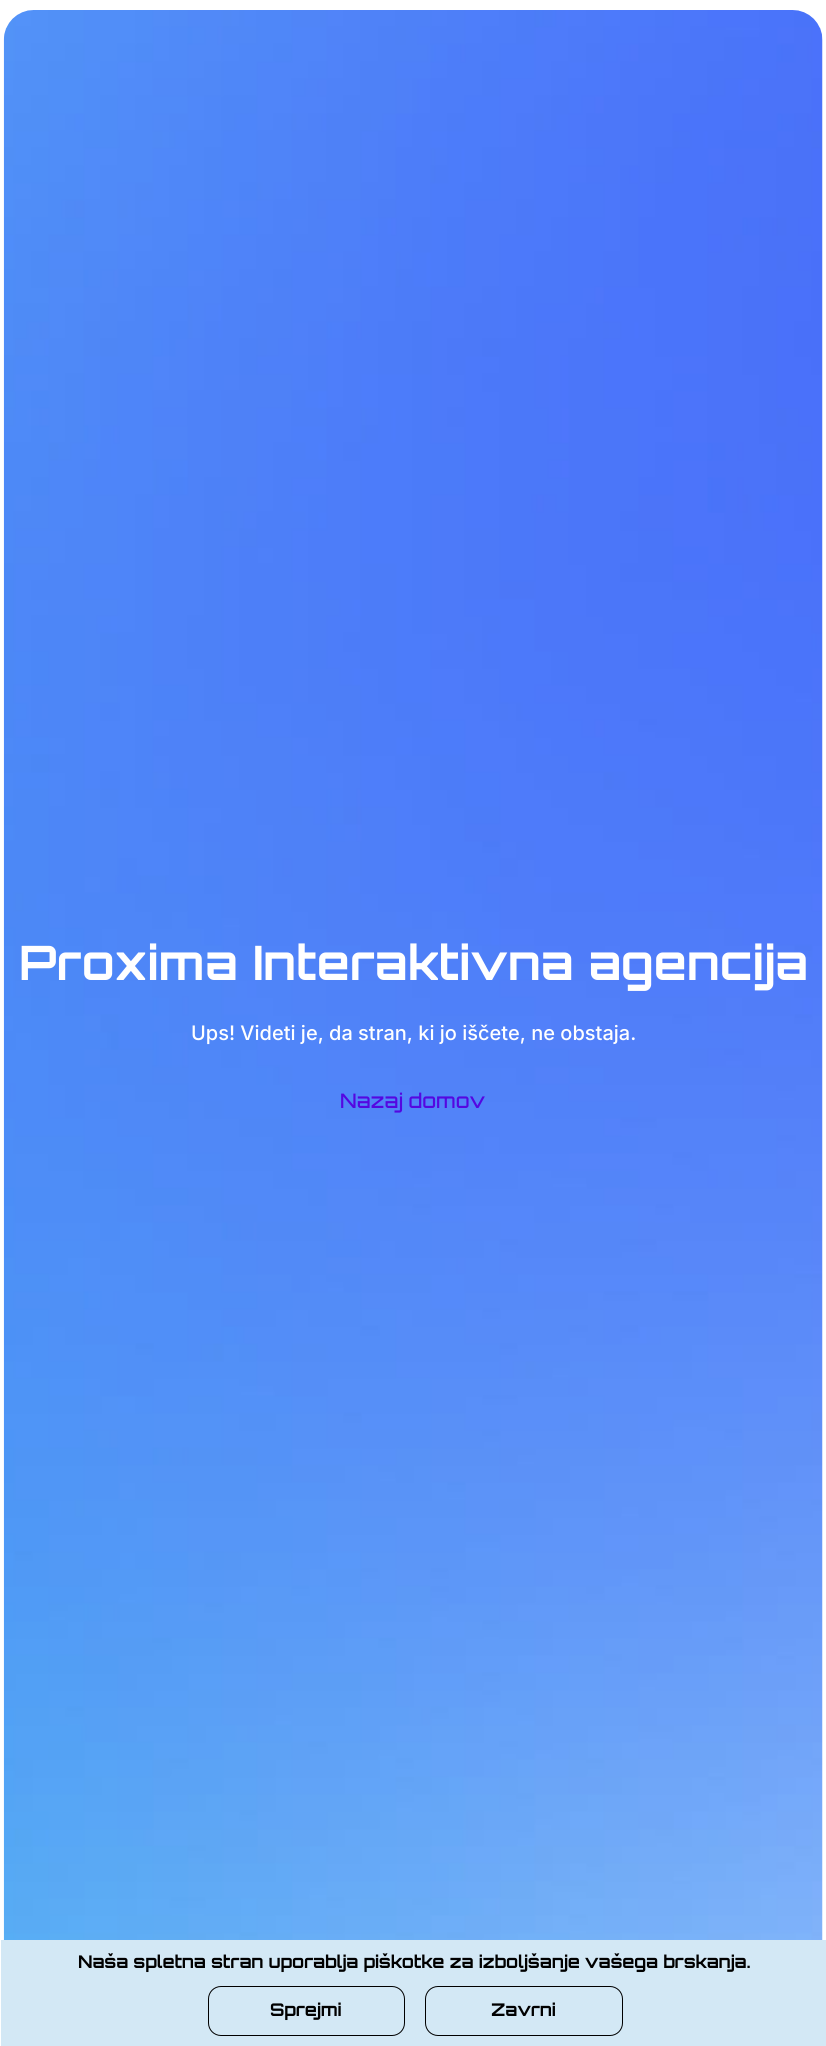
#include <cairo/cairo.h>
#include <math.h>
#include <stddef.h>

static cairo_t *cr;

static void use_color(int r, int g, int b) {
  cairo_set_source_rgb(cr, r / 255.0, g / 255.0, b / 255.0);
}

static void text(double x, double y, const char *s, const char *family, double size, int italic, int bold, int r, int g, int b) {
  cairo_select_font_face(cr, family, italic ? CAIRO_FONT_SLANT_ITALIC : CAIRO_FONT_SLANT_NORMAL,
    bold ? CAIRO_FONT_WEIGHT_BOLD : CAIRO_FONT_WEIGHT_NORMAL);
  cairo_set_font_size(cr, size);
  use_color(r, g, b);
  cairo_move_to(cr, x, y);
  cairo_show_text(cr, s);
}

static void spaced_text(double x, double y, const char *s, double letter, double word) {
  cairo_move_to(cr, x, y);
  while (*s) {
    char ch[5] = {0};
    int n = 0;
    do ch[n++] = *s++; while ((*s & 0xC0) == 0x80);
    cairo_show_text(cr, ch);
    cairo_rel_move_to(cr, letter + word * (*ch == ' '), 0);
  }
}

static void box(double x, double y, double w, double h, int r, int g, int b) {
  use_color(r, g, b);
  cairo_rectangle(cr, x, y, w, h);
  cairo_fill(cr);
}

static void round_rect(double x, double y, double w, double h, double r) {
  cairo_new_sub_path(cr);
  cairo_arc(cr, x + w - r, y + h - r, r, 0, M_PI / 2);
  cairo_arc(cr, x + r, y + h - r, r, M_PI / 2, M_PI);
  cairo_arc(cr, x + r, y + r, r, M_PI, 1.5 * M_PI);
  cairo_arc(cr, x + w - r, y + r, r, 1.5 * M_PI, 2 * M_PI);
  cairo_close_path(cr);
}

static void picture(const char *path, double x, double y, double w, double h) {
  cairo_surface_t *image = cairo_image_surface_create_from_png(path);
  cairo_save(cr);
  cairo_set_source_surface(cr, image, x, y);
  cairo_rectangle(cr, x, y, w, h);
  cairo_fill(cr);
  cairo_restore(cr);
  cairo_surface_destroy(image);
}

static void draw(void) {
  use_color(255, 255, 255);
  cairo_paint(cr);
  picture("img_01.png", 3, 10, 820, 1930);
  box(1, 1940, 825, 106, 211, 232, 245);
  round_rect(208.5, 1986.5, 196, 49, 12.5);
  use_color(0, 0, 0);
  cairo_set_line_width(cr, 1);
  cairo_stroke(cr);
  round_rect(425.5, 1986.5, 197, 49, 12.5);
  cairo_stroke(cr);
  text(19, 980, "Proxima Interaktivna agencija", "Orbitron", 47.5, 0, 1, 255, 255, 255);
  text(191, 1040, "Ups! Videti je, da stran, ki jo iščete, ne obstaja.", "Inter Medium", 20, 0, 0, 255, 255, 255);
  text(340, 1108, "Nazaj domov", "Orbitron Medium", 20, 0, 0, 84, 7, 225);
  cairo_select_font_face(cr, "Orbitron", CAIRO_FONT_SLANT_NORMAL, CAIRO_FONT_WEIGHT_BOLD);
  cairo_set_font_size(cr, 17.5);
  use_color(0, 0, 0);
  spaced_text(78, 1968, "Naša spletna stran uporablja piškotke za izboljšanje vašega brskanja.", -0.18, 0);
  spaced_text(270, 2016, "Sprejmi", -0.18, 0);
  spaced_text(491, 2016, "Zavrni", -0.18, 0);
}

int main(void) {
  cairo_surface_t *surface = cairo_image_surface_create(CAIRO_FORMAT_RGB24, 826, 2046);
  cr = cairo_create(surface);
  cairo_font_options_t *options = cairo_font_options_create();
  cairo_font_options_set_hint_metrics(options, CAIRO_HINT_METRICS_OFF);
  cairo_font_options_set_hint_style(options, CAIRO_HINT_STYLE_NONE);
  cairo_set_font_options(cr, options);
  cairo_set_miter_limit(cr, 4);
  draw();
  cairo_surface_write_to_png(surface, "out.png");
  cairo_font_options_destroy(options);
  cairo_destroy(cr);
  cairo_surface_destroy(surface);
  return 0;
}
